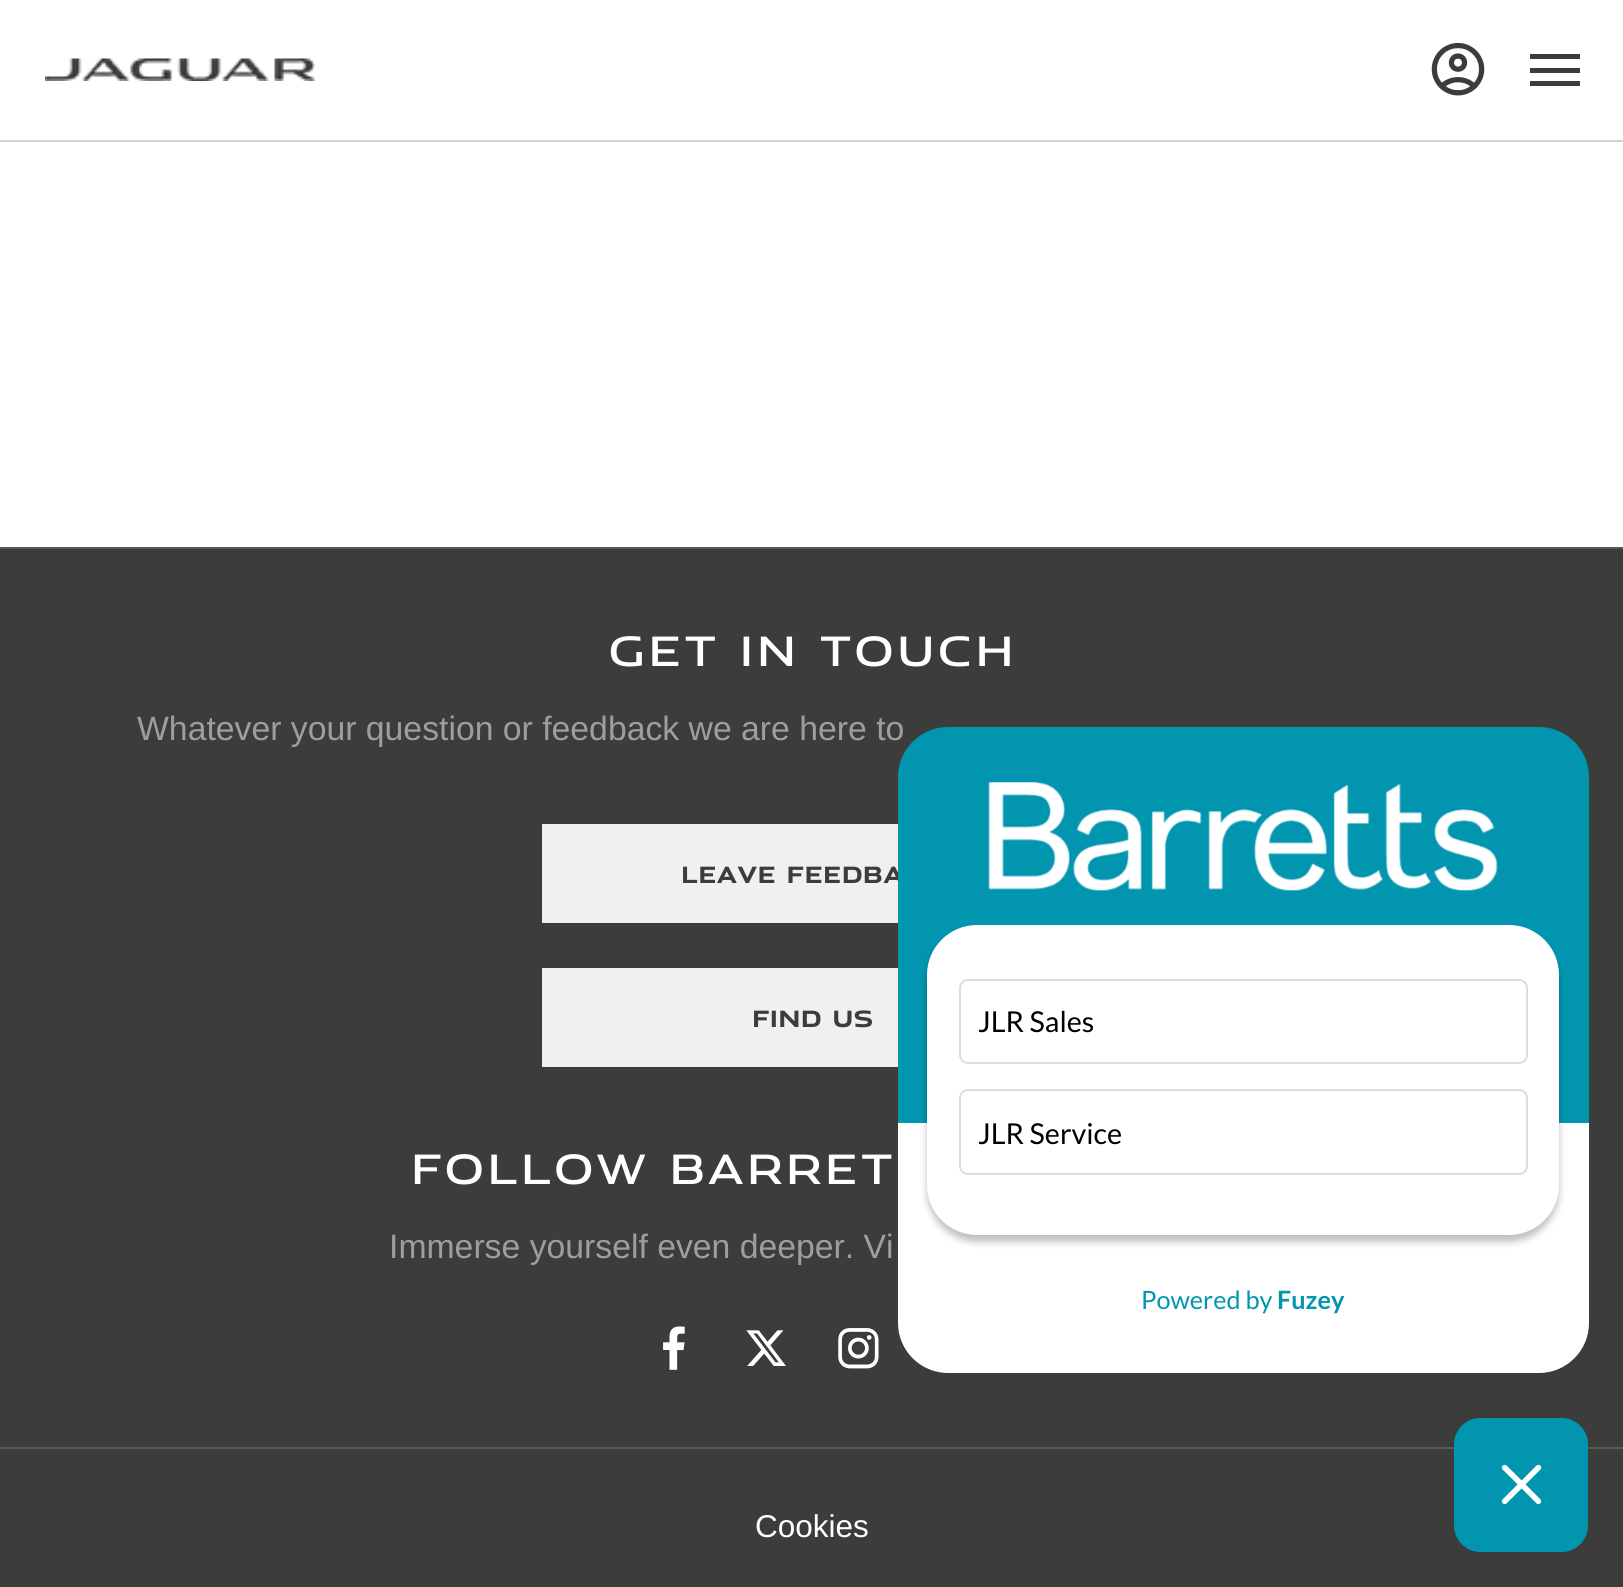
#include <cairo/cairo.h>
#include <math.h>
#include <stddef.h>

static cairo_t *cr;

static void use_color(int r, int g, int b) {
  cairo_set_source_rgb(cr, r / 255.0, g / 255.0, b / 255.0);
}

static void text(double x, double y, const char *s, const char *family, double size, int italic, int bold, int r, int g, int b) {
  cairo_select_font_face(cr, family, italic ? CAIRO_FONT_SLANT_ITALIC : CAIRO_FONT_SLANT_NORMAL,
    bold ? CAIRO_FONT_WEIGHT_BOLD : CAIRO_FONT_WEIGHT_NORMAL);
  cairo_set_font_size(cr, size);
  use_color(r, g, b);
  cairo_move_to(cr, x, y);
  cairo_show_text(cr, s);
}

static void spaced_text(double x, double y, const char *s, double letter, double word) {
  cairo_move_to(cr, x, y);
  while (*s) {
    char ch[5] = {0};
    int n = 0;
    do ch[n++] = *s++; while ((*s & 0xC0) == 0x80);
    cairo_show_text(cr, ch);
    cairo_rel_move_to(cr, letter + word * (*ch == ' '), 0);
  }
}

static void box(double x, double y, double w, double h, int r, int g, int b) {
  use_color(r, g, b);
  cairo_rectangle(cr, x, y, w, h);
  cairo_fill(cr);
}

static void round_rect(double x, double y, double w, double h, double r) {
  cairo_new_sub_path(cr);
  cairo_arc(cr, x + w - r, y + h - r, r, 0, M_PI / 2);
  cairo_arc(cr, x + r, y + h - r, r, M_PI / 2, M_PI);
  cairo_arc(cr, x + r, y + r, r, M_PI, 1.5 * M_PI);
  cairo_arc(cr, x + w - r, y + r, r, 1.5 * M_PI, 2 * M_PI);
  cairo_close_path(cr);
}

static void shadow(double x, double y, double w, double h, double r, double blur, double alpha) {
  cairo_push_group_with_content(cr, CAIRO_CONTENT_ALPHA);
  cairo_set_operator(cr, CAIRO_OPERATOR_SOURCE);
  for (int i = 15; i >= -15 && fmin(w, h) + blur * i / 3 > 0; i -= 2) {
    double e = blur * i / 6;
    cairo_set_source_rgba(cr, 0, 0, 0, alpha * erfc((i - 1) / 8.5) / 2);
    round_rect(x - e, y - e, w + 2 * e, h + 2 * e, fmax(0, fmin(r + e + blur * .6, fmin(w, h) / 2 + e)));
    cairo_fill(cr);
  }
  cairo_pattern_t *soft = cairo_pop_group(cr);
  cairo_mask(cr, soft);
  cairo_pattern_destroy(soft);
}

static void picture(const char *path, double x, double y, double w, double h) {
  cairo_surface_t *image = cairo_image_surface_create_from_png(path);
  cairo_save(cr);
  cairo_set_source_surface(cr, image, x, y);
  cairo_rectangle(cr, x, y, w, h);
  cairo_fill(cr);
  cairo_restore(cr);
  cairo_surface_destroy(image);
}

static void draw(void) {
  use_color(255, 255, 255);
  cairo_paint(cr);
  box(0, 140, 1623, 2, 210, 210, 210);
  picture("img_01.png", 45, 58, 270, 23);
  picture("img_02.png", 1431, 42, 54, 54);
  box(1530, 81, 50, 5, 60, 60, 59);
  box(1530, 54, 50, 5, 60, 60, 59);
  box(1530, 68, 50, 5, 60, 60, 59);
  box(0, 549, 1623, 1038, 60, 60, 59);
  box(0, 547, 1623, 2, 89, 89, 88);
  box(542, 824, 356, 99, 240, 240, 240);
  box(542, 968, 356, 99, 240, 240, 240);
  picture("img_03.png", 663, 1326, 22, 44);
  picture("img_04.png", 746, 1330, 40, 36);
  picture("img_05.png", 838, 1328, 41, 41);
  box(0, 1447, 1623, 2, 89, 89, 88);
  use_color(255, 255, 255);
  cairo_new_path(cr);
  cairo_move_to(cr, 898, 1123);
  cairo_line_to(cr, 1589, 1123);
  cairo_line_to(cr, 1589, 1323);
  cairo_curve_to(cr, 1589, 1350.5, 1566.5, 1373, 1539, 1373);
  cairo_line_to(cr, 948, 1373);
  cairo_curve_to(cr, 920.5, 1373, 898, 1350.5, 898, 1323);
  cairo_close_path(cr);
  cairo_fill(cr);
  use_color(1, 149, 175);
  cairo_new_path(cr);
  cairo_move_to(cr, 1588, 1444);
  cairo_line_to(cr, 1588, 1526);
  cairo_curve_to(cr, 1588, 1540, 1576, 1552, 1562, 1552);
  cairo_line_to(cr, 1480, 1552);
  cairo_curve_to(cr, 1466, 1552, 1454, 1540, 1454, 1526);
  cairo_line_to(cr, 1454, 1444);
  cairo_curve_to(cr, 1454, 1430, 1466, 1418, 1480, 1418);
  cairo_line_to(cr, 1562, 1418);
  cairo_curve_to(cr, 1576, 1418, 1588, 1430, 1588, 1444);
  cairo_close_path(cr);
  cairo_fill(cr);
  picture("img_07.png", 1501, 1464, 41, 41);
  cairo_select_font_face(cr, "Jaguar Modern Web", CAIRO_FONT_SLANT_NORMAL, CAIRO_FONT_WEIGHT_NORMAL);
  cairo_set_font_size(cr, 40.5);
  use_color(255, 255, 255);
  spaced_text(608, 666, "GET IN TOUCH", 2, 0);
  text(137, 740, "Whatever your question or feedback we are here to", "Liberation Sans", 33.75, 0, 0, 158, 158, 157);
  cairo_select_font_face(cr, "Jaguar Modern Web", CAIRO_FONT_SLANT_NORMAL, CAIRO_FONT_WEIGHT_BOLD);
  cairo_set_font_size(cr, 22.5);
  use_color(60, 60, 59);
  spaced_text(681, 883, "LEAVE FEEDBA", 0.25, 0);
  spaced_text(752, 1027, "FIND US", 0.25, 0);
  cairo_select_font_face(cr, "Jaguar Modern Web", CAIRO_FONT_SLANT_NORMAL, CAIRO_FONT_WEIGHT_NORMAL);
  cairo_set_font_size(cr, 40.5);
  use_color(255, 255, 255);
  spaced_text(410, 1184, "FOLLOW BARRET", 2, 0);
  text(389, 1258, "Immerse yourself even deeper. Vi", "Liberation Sans", 33.75, 0, 0, 158, 158, 157);
  text(755, 1537, "Cookies", "Liberation Sans", 31.5, 0, 0, 255, 255, 255);
  use_color(1, 149, 175);
  cairo_new_path(cr);
  cairo_move_to(cr, 948, 727);
  cairo_line_to(cr, 1539, 727);
  cairo_curve_to(cr, 1566.5, 727, 1589, 749.5, 1589, 777);
  cairo_line_to(cr, 1589, 1123);
  cairo_line_to(cr, 898, 1123);
  cairo_line_to(cr, 898, 777);
  cairo_curve_to(cr, 898, 749.5, 920.5, 727, 948, 727);
  cairo_close_path(cr);
  cairo_fill(cr);
  picture("img_06.png", 988, 782, 510, 109);
  use_color(0, 0, 0);
  shadow(927, 932, 632, 310, 50, 3.5, 0.25);
  use_color(255, 255, 255);
  round_rect(927, 925, 632, 310, 50);
  cairo_fill(cr);
  round_rect(960, 980, 567, 83, 8);
  use_color(221, 221, 221);
  cairo_stroke(cr);
  text(978, 1032, "JLR Sales", "Lato", 28.75, 0, 0, 0, 0, 0);
  round_rect(960, 1090, 567, 84, 8);
  use_color(221, 221, 221);
  cairo_stroke(cr);
  text(978, 1144, "JLR Service", "Lato", 28.75, 0, 0, 0, 0, 0);
  text(1141, 1309, "Powered by", "Lato", 25.25, 0, 0, 1, 149, 175);
  text(1277, 1309, "Fuzey", "Lato", 25.25, 0, 1, 1, 149, 175);
}

int main(void) {
  cairo_surface_t *surface = cairo_image_surface_create(CAIRO_FORMAT_RGB24, 1623, 1587);
  cr = cairo_create(surface);
  cairo_font_options_t *options = cairo_font_options_create();
  cairo_font_options_set_hint_metrics(options, CAIRO_HINT_METRICS_OFF);
  cairo_font_options_set_hint_style(options, CAIRO_HINT_STYLE_NONE);
  cairo_set_font_options(cr, options);
  cairo_set_miter_limit(cr, 4);
  draw();
  cairo_surface_write_to_png(surface, "out.png");
  cairo_font_options_destroy(options);
  cairo_destroy(cr);
  cairo_surface_destroy(surface);
  return 0;
}
